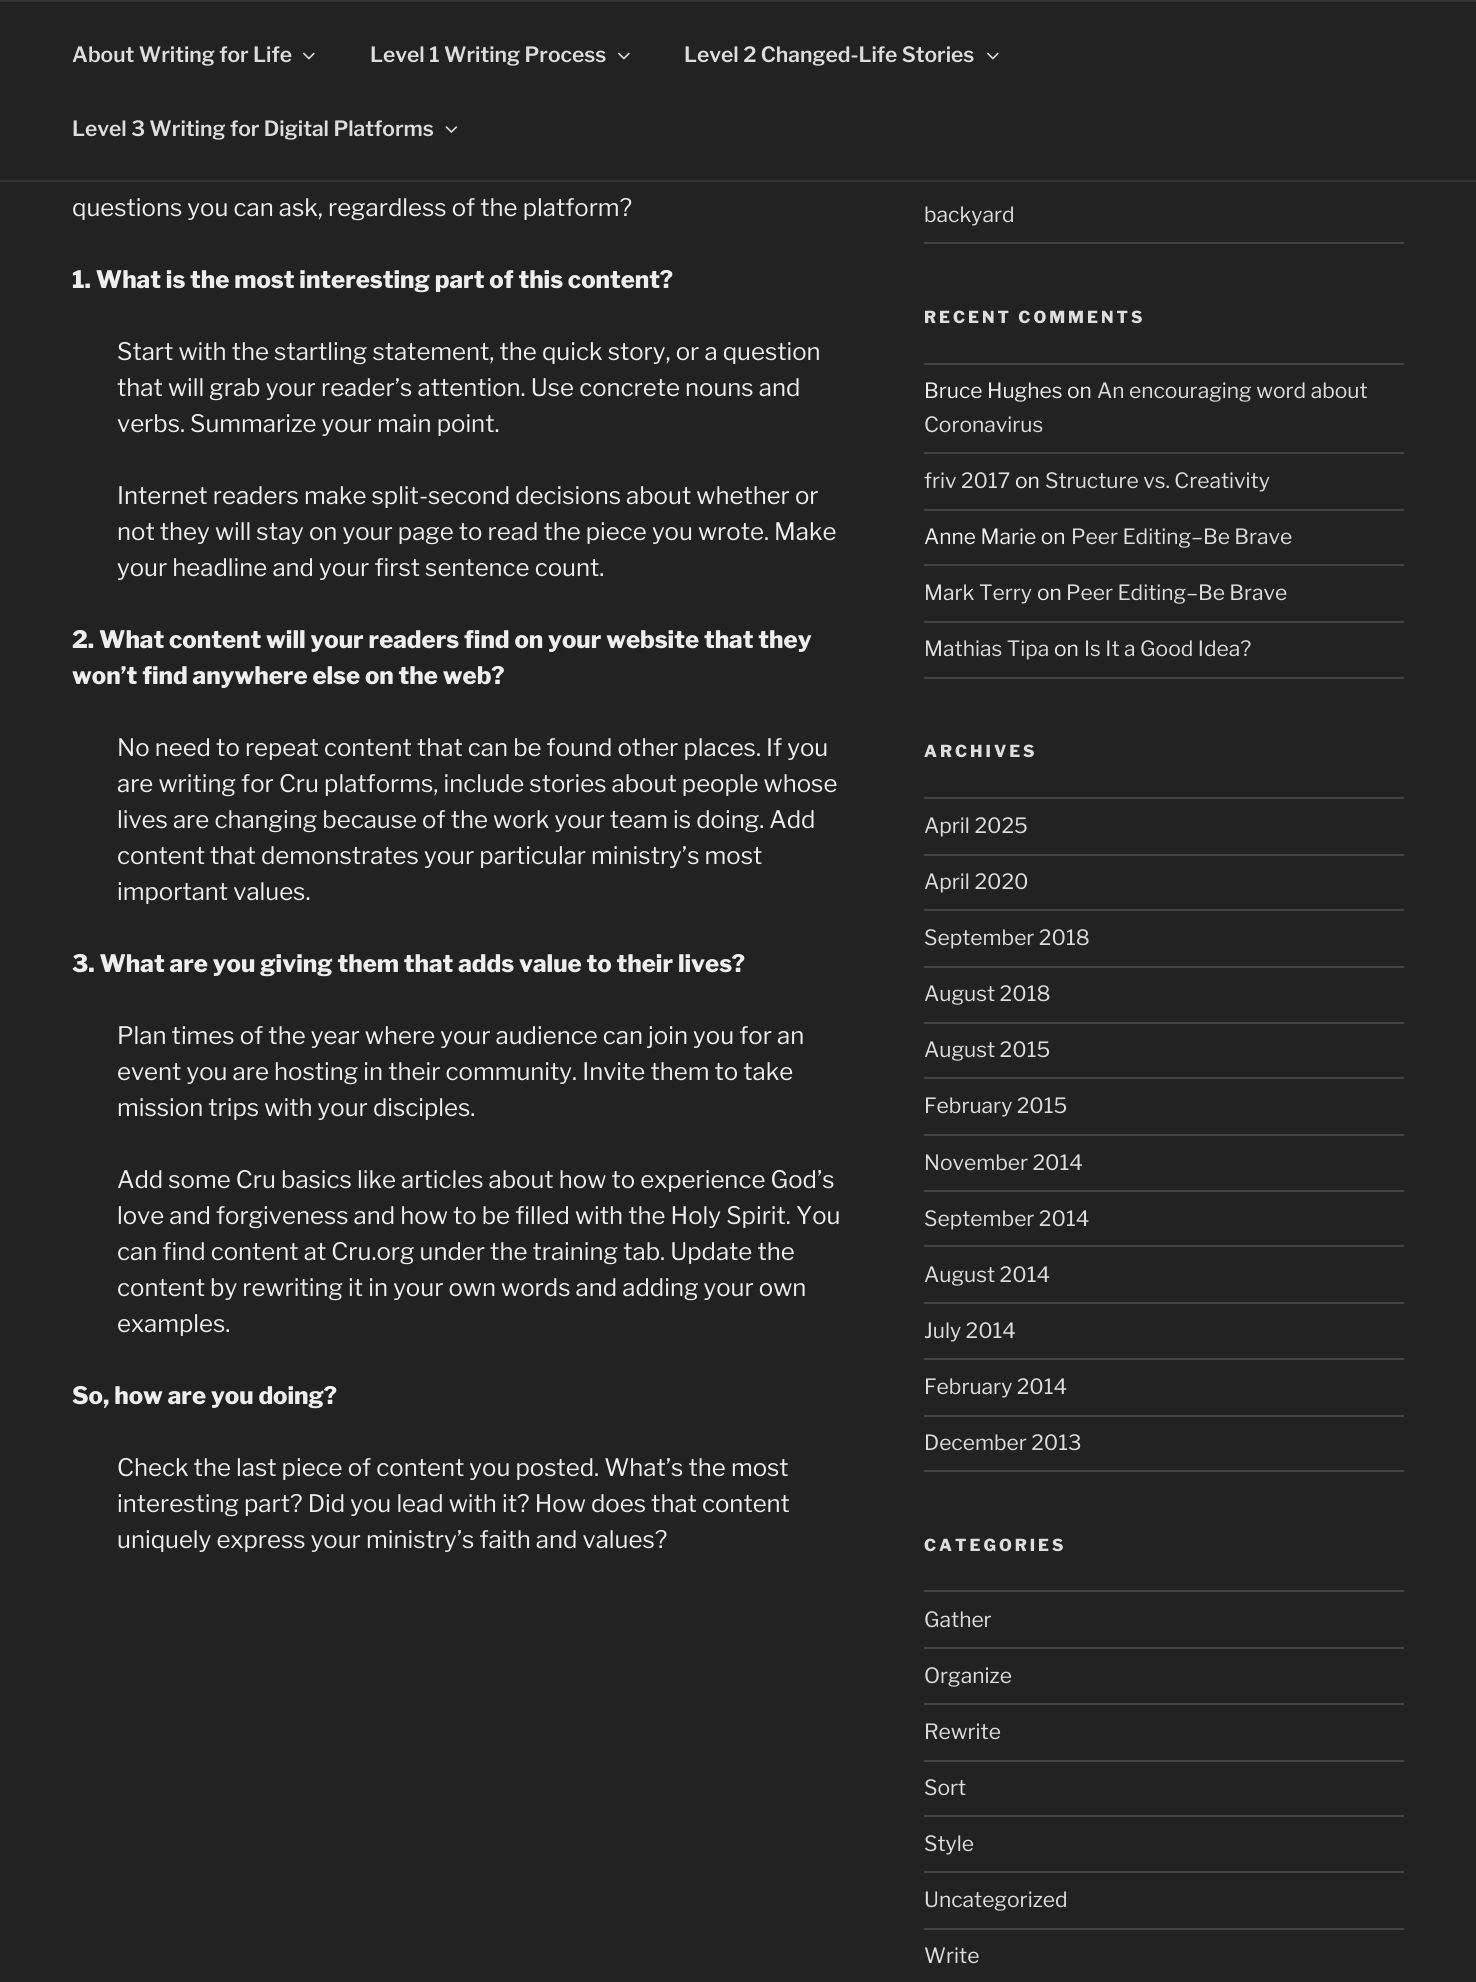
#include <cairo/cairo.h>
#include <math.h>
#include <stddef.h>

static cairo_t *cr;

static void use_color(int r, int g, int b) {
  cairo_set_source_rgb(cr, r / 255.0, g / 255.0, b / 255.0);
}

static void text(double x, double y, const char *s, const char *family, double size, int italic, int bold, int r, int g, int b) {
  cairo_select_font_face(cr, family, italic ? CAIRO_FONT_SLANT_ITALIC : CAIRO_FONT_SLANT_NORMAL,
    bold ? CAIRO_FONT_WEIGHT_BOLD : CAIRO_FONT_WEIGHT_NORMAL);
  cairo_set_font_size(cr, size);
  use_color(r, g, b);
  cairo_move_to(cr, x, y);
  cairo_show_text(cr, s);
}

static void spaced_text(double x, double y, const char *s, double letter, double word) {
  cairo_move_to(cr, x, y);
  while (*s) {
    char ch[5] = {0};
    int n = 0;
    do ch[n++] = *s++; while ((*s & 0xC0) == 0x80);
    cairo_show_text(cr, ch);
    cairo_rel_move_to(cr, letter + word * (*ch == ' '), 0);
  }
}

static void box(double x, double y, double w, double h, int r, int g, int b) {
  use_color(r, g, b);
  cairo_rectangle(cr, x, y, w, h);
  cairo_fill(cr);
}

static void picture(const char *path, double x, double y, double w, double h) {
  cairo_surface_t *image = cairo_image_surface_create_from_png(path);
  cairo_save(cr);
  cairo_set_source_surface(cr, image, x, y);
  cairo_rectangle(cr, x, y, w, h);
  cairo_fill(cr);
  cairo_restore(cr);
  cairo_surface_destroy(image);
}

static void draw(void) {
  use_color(34, 34, 34);
  cairo_paint(cr);
  box(0, 0, 1476, 2, 51, 51, 51);
  box(0, 180, 1476, 2, 51, 51, 51);
  picture("img_01.png", 303, 52, 12, 8);
  picture("img_01.png", 618, 52, 12, 8);
  picture("img_01.png", 987, 52, 12, 8);
  picture("img_02.png", 445, 126, 13, 7);
  box(924, 242, 480, 2, 68, 68, 68);
  box(924, 363, 480, 2, 68, 68, 68);
  box(924, 452, 480, 2, 68, 68, 68);
  box(924, 509, 480, 2, 68, 68, 68);
  box(924, 564, 480, 2, 68, 68, 68);
  box(924, 621, 480, 2, 68, 68, 68);
  box(924, 677, 480, 2, 68, 68, 68);
  box(924, 797, 480, 2, 68, 68, 68);
  box(924, 854, 480, 2, 68, 68, 68);
  box(924, 909, 480, 2, 68, 68, 68);
  box(924, 966, 480, 2, 68, 68, 68);
  box(924, 1022, 480, 2, 68, 68, 68);
  box(924, 1077, 480, 2, 68, 68, 68);
  box(924, 1134, 480, 2, 68, 68, 68);
  box(924, 1190, 480, 2, 68, 68, 68);
  box(924, 1245, 480, 2, 68, 68, 68);
  box(924, 1302, 480, 2, 68, 68, 68);
  box(924, 1358, 480, 2, 68, 68, 68);
  box(924, 1415, 480, 2, 68, 68, 68);
  box(924, 1470, 480, 2, 68, 68, 68);
  box(924, 1590, 480, 2, 68, 68, 68);
  box(924, 1647, 480, 2, 68, 68, 68);
  box(924, 1703, 480, 2, 68, 68, 68);
  box(924, 1760, 480, 2, 68, 68, 68);
  box(924, 1815, 480, 2, 68, 68, 68);
  box(924, 1871, 480, 2, 68, 68, 68);
  box(924, 1928, 480, 2, 68, 68, 68);
  text(72, 62, "About Writing for Life", "Libre Franklin SemiBold", 21, 0, 0, 221, 221, 221);
  text(370, 62, "Level 1 Writing Process", "Libre Franklin SemiBold", 21, 0, 0, 221, 221, 221);
  text(684, 62, "Level 2 Changed-Life Stories", "Libre Franklin SemiBold", 21, 0, 0, 221, 221, 221);
  text(72, 136, "Level 3 Writing for Digital Platforms", "Libre Franklin SemiBold", 21, 0, 0, 221, 221, 221);
  text(72, 216, "questions you can ask, regardless of the platform?", "Libre Franklin", 24, 0, 0, 238, 238, 238);
  text(72, 288, "1. What is the most interesting part of this content?", "Libre Franklin ExtraBold", 24, 0, 0, 238, 238, 238);
  text(117, 360, "Start with the startling statement, the quick story, or a question", "Libre Franklin", 24, 0, 0, 238, 238, 238);
  text(117, 396, "that will grab your reader’s attention. Use concrete nouns and", "Libre Franklin", 24, 0, 0, 238, 238, 238);
  text(117, 432, "verbs. Summarize your main point.", "Libre Franklin", 24, 0, 0, 238, 238, 238);
  text(117, 504, "Internet readers make split-second decisions about whether or", "Libre Franklin", 24, 0, 0, 238, 238, 238);
  text(117, 540, "not they will stay on your page to read the piece you wrote. Make", "Libre Franklin", 24, 0, 0, 238, 238, 238);
  text(117, 576, "your headline and your first sentence count.", "Libre Franklin", 24, 0, 0, 238, 238, 238);
  text(72, 648, "2. What content will your readers find on your website that they", "Libre Franklin ExtraBold", 24, 0, 0, 238, 238, 238);
  text(72, 684, "won’t find anywhere else on the web?", "Libre Franklin ExtraBold", 24, 0, 0, 238, 238, 238);
  text(117, 756, "No need to repeat content that can be found other places. If you", "Libre Franklin", 24, 0, 0, 238, 238, 238);
  text(117, 792, "are writing for Cru platforms, include stories about people whose", "Libre Franklin", 24, 0, 0, 238, 238, 238);
  text(117, 828, "lives are changing because of the work your team is doing. Add", "Libre Franklin", 24, 0, 0, 238, 238, 238);
  text(117, 864, "content that demonstrates your particular ministry’s most", "Libre Franklin", 24, 0, 0, 238, 238, 238);
  text(117, 900, "important values.", "Libre Franklin", 24, 0, 0, 238, 238, 238);
  text(72, 972, "3. What are you giving them that adds value to their lives?", "Libre Franklin ExtraBold", 24, 0, 0, 238, 238, 238);
  text(117, 1044, "Plan times of the year where your audience can join you for an", "Libre Franklin", 24, 0, 0, 238, 238, 238);
  text(117, 1080, "event you are hosting in their community. Invite them to take", "Libre Franklin", 24, 0, 0, 238, 238, 238);
  text(117, 1116, "mission trips with your disciples.", "Libre Franklin", 24, 0, 0, 238, 238, 238);
  text(117, 1188, "Add some Cru basics like articles about how to experience God’s", "Libre Franklin", 24, 0, 0, 238, 238, 238);
  text(117, 1224, "love and forgiveness and how to be filled with the Holy Spirit. You", "Libre Franklin", 24, 0, 0, 238, 238, 238);
  text(117, 1260, "can find content at Cru.org under the training tab. Update the", "Libre Franklin", 24, 0, 0, 238, 238, 238);
  text(117, 1296, "content by rewriting it in your own words and adding your own", "Libre Franklin", 24, 0, 0, 238, 238, 238);
  text(117, 1332, "examples.", "Libre Franklin", 24, 0, 0, 238, 238, 238);
  text(72, 1404, "So, how are you doing?", "Libre Franklin ExtraBold", 24, 0, 0, 238, 238, 238);
  text(117, 1476, "Check the last piece of content you posted. What’s the most", "Libre Franklin", 24, 0, 0, 238, 238, 238);
  text(117, 1512, "interesting part? Did you lead with it? How does that content", "Libre Franklin", 24, 0, 0, 238, 238, 238);
  text(117, 1548, "uniquely express your ministry’s faith and values?", "Libre Franklin", 24, 0, 0, 238, 238, 238);
  text(924, 222, "backyard", "Libre Franklin", 21, 0, 0, 221, 221, 221);
  cairo_select_font_face(cr, "Libre Franklin ExtraBold", CAIRO_FONT_SLANT_NORMAL, CAIRO_FONT_WEIGHT_NORMAL);
  cairo_set_font_size(cr, 16.5);
  spaced_text(924, 323, "RECENT COMMENTS", 3, 0);
  text(924, 398, "Bruce Hughes on", "Libre Franklin", 21, 0, 0, 238, 238, 238);
  text(1097, 398, "An encouraging word about", "Libre Franklin", 21, 0, 0, 221, 221, 221);
  text(924, 432, "Coronavirus", "Libre Franklin", 21, 0, 0, 221, 221, 221);
  text(924, 488, "friv 2017", "Libre Franklin", 21, 0, 0, 221, 221, 221);
  text(1015, 488, "on", "Libre Franklin", 21, 0, 0, 238, 238, 238);
  text(1045, 488, "Structure vs. Creativity", "Libre Franklin", 21, 0, 0, 221, 221, 221);
  text(924, 544, "Anne Marie on", "Libre Franklin", 21, 0, 0, 238, 238, 238);
  text(1071, 544, "Peer Editing–Be Brave", "Libre Franklin", 21, 0, 0, 221, 221, 221);
  text(924, 600, "Mark Terry", "Libre Franklin", 21, 0, 0, 221, 221, 221);
  text(1037, 600, "on", "Libre Franklin", 21, 0, 0, 238, 238, 238);
  text(1066, 600, "Peer Editing–Be Brave", "Libre Franklin", 21, 0, 0, 221, 221, 221);
  text(924, 656, "Mathias Tipa", "Libre Franklin", 21, 0, 0, 221, 221, 221);
  text(1054, 656, "on", "Libre Franklin", 21, 0, 0, 238, 238, 238);
  text(1084, 656, "Is It a Good Idea?", "Libre Franklin", 21, 0, 0, 221, 221, 221);
  cairo_select_font_face(cr, "Libre Franklin ExtraBold", CAIRO_FONT_SLANT_NORMAL, CAIRO_FONT_WEIGHT_NORMAL);
  cairo_set_font_size(cr, 16.5);
  spaced_text(924, 757, "ARCHIVES", 3, 0);
  text(924, 833, "April 2025", "Libre Franklin", 21, 0, 0, 221, 221, 221);
  text(924, 889, "April 2020", "Libre Franklin", 21, 0, 0, 221, 221, 221);
  text(924, 945, "September 2018", "Libre Franklin", 21, 0, 0, 221, 221, 221);
  text(924, 1001, "August 2018", "Libre Franklin", 21, 0, 0, 221, 221, 221);
  text(924, 1057, "August 2015", "Libre Franklin", 21, 0, 0, 221, 221, 221);
  text(924, 1113, "February 2015", "Libre Franklin", 21, 0, 0, 221, 221, 221);
  text(924, 1170, "November 2014", "Libre Franklin", 21, 0, 0, 221, 221, 221);
  text(924, 1226, "September 2014", "Libre Franklin", 21, 0, 0, 221, 221, 221);
  text(924, 1282, "August 2014", "Libre Franklin", 21, 0, 0, 221, 221, 221);
  text(924, 1338, "July 2014", "Libre Franklin", 21, 0, 0, 221, 221, 221);
  text(924, 1394, "February 2014", "Libre Franklin", 21, 0, 0, 221, 221, 221);
  text(924, 1450, "December 2013", "Libre Franklin", 21, 0, 0, 221, 221, 221);
  cairo_select_font_face(cr, "Libre Franklin ExtraBold", CAIRO_FONT_SLANT_NORMAL, CAIRO_FONT_WEIGHT_NORMAL);
  cairo_set_font_size(cr, 16.5);
  spaced_text(924, 1551, "CATEGORIES", 3, 0);
  text(924, 1627, "Gather", "Libre Franklin", 21, 0, 0, 221, 221, 221);
  text(924, 1683, "Organize", "Libre Franklin", 21, 0, 0, 221, 221, 221);
  text(924, 1739, "Rewrite", "Libre Franklin", 21, 0, 0, 221, 221, 221);
  text(924, 1795, "Sort", "Libre Franklin", 21, 0, 0, 221, 221, 221);
  text(924, 1851, "Style", "Libre Franklin", 21, 0, 0, 221, 221, 221);
  text(924, 1907, "Uncategorized", "Libre Franklin", 21, 0, 0, 221, 221, 221);
  text(924, 1963, "Write", "Libre Franklin", 21, 0, 0, 221, 221, 221);
}

int main(void) {
  cairo_surface_t *surface = cairo_image_surface_create(CAIRO_FORMAT_RGB24, 1476, 1982);
  cr = cairo_create(surface);
  cairo_font_options_t *options = cairo_font_options_create();
  cairo_font_options_set_hint_metrics(options, CAIRO_HINT_METRICS_OFF);
  cairo_font_options_set_hint_style(options, CAIRO_HINT_STYLE_NONE);
  cairo_set_font_options(cr, options);
  cairo_set_miter_limit(cr, 4);
  draw();
  cairo_surface_write_to_png(surface, "out.png");
  cairo_font_options_destroy(options);
  cairo_destroy(cr);
  cairo_surface_destroy(surface);
  return 0;
}
